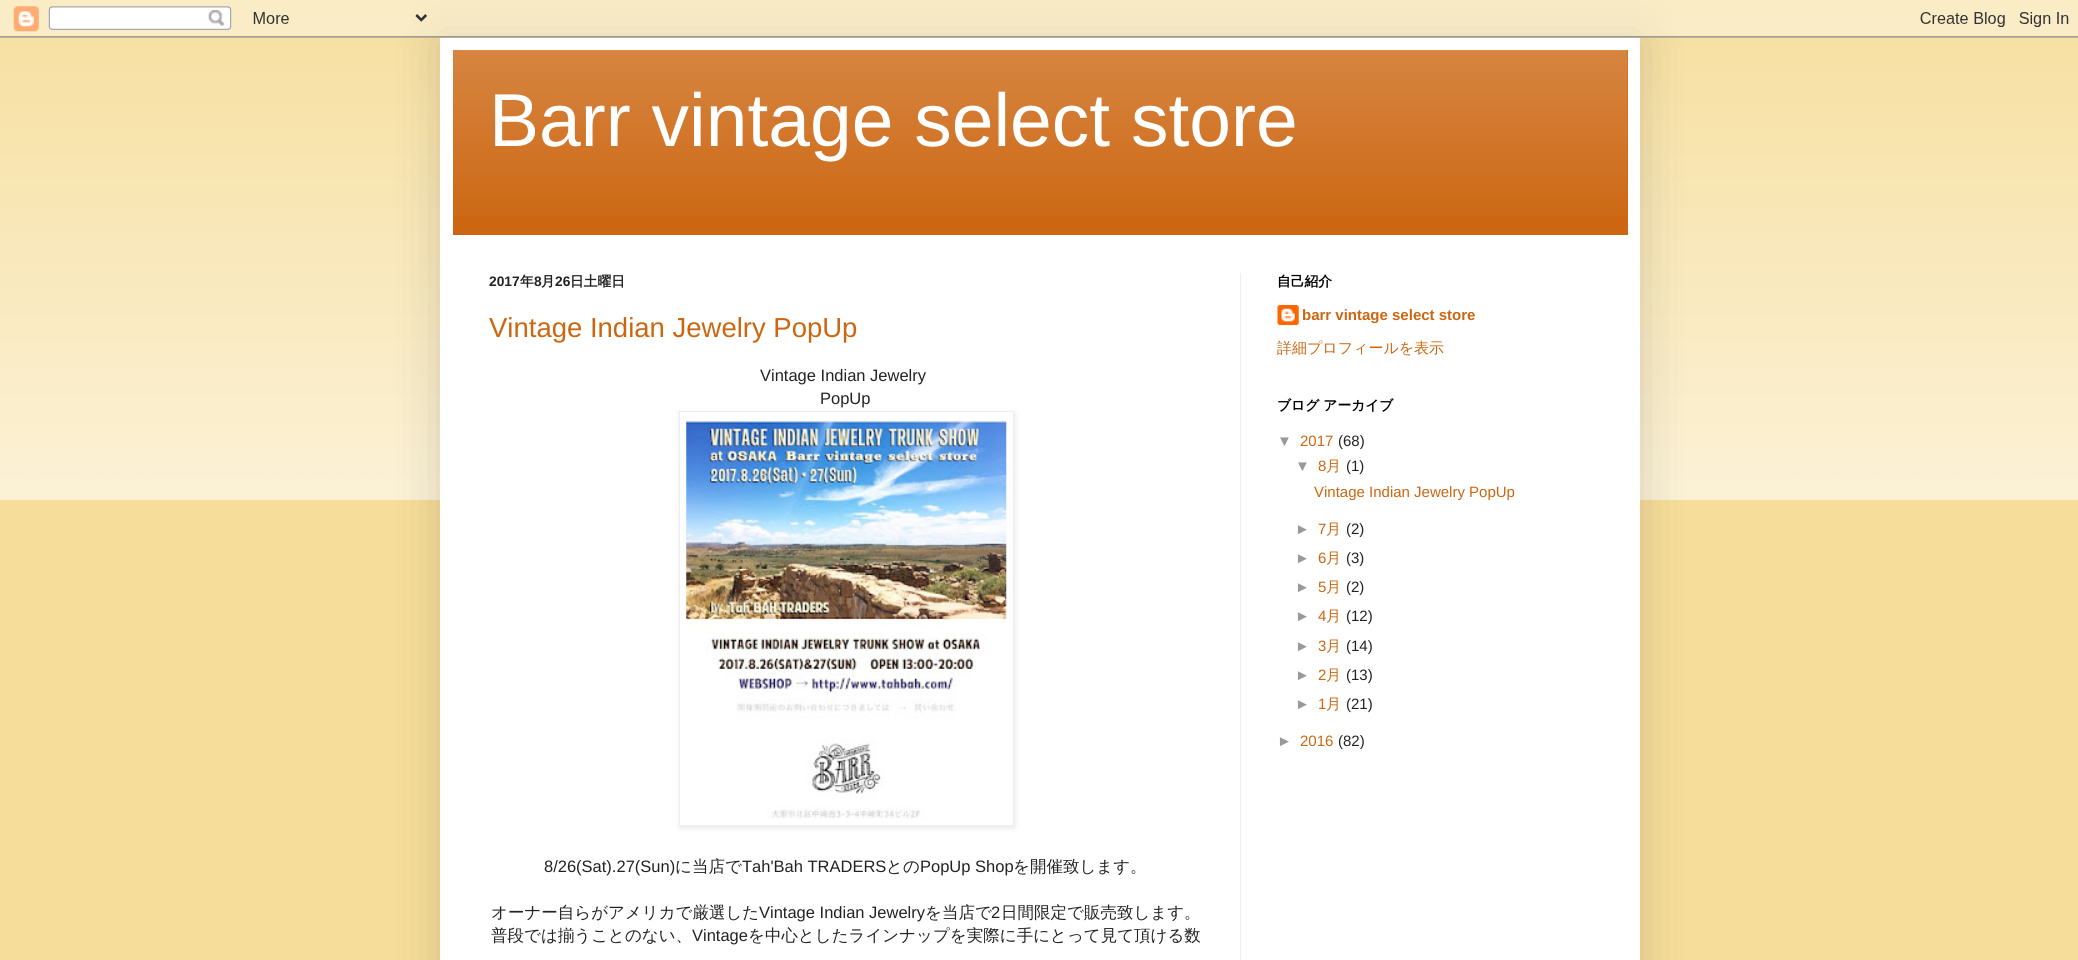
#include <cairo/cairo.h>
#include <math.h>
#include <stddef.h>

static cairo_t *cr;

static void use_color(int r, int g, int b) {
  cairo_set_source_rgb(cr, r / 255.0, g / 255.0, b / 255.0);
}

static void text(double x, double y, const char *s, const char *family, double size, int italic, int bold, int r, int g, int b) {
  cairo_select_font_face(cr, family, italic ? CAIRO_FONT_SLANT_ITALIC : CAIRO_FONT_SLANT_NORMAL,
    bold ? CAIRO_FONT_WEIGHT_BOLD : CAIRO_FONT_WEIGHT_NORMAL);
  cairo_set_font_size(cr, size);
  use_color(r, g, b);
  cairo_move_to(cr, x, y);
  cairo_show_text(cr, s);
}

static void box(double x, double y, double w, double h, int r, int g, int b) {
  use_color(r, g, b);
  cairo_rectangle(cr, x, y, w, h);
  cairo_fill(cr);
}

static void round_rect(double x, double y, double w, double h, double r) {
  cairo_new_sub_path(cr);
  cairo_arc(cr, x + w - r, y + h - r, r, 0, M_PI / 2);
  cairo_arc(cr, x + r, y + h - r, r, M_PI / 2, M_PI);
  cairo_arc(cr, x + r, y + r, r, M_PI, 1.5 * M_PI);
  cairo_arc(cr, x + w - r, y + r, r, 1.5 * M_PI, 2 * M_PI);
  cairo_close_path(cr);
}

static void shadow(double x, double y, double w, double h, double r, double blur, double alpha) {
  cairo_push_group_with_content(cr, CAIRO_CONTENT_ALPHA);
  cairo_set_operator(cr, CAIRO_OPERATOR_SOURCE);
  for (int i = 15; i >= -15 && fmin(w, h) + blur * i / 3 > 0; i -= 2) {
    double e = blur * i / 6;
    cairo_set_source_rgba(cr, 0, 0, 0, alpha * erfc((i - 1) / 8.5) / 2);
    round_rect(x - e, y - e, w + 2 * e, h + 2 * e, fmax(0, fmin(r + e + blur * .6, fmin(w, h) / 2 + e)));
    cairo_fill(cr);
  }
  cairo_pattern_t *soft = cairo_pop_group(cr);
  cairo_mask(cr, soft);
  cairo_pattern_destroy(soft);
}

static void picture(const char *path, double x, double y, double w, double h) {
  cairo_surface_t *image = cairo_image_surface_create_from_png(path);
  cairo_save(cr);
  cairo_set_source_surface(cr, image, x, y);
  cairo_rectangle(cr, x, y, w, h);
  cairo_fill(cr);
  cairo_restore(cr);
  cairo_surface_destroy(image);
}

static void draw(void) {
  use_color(246, 221, 153);
  cairo_paint(cr);
  picture("img_01.png", 0, 0, 2078, 500);
  use_color(0, 0, 0);
  shadow(440, 38, 1200, 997, 0, 25, 0.15);
  picture("img_02.png", 0, 0, 2078, 38);
  box(440, 38, 1200, 922, 255, 255, 255);
  box(453, 50, 1175, 185, 204, 102, 17);
  picture("img_03.png", 453, 50, 1175, 166);
  box(1240, 273, 1, 687, 238, 238, 238);
  use_color(0, 0, 0);
  shadow(680, 413, 335, 415, 0, 3, 0.1);
  use_color(255, 255, 255);
  cairo_rectangle(cr, 679.5, 411.5, 334, 414);
  cairo_fill_preserve(cr);
  use_color(238, 238, 238);
  cairo_set_line_width(cr, 1);
  cairo_stroke(cr);
  picture("img_04.png", 686, 419, 321, 400);
  picture("img_05.png", 1277, 305, 22, 20);
  text(489, 146, "Barr vintage select store", "Liberation Sans", 75, 0, 0, 255, 255, 255);
  text(489, 286, "2017", "Liberation Sans", 13.75, 0, 1, 34, 34, 34);
  text(520, 286, "年", "WenQuanYi Zen Hei", 13.75, 0, 1, 34, 34, 34);
  text(534, 286, "8", "Liberation Sans", 13.75, 0, 1, 34, 34, 34);
  text(541, 286, "月", "WenQuanYi Zen Hei", 13.75, 0, 1, 34, 34, 34);
  text(555, 286, "26", "Liberation Sans", 13.75, 0, 1, 34, 34, 34);
  text(570, 286, "日土曜日", "WenQuanYi Zen Hei", 13.75, 0, 1, 34, 34, 34);
  text(489, 337, "Vintage Indian Jewelry PopUp", "Liberation Sans", 27.5, 0, 0, 204, 102, 17);
  text(760, 381, "Vintage Indian Jewelry", "Liberation Sans", 16.5, 0, 0, 34, 34, 34);
  text(820, 404, "PopUp", "Liberation Sans", 16.5, 0, 0, 34, 34, 34);
  text(544, 872, "8/26(Sat).27(Sun)", "Liberation Sans", 16.5, 0, 0, 34, 34, 34);
  text(675, 872, "に当店で", "WenQuanYi Zen Hei Medium", 16.5, 0, 0, 34, 34, 34);
  text(742, 872, "Tah'Bah TRADERS", "Liberation Sans", 16.5, 0, 0, 34, 34, 34);
  text(886, 872, "との", "WenQuanYi Zen Hei Medium", 16.5, 0, 0, 34, 34, 34);
  text(920, 872, "PopUp Shop", "Liberation Sans", 16.5, 0, 0, 34, 34, 34);
  text(1013, 872, "を開催致します。", "WenQuanYi Zen Hei Medium", 16.5, 0, 0, 34, 34, 34);
  text(491, 918, "オーナー自らがアメリカで厳選した", "WenQuanYi Zen Hei Medium", 16.5, 0, 0, 34, 34, 34);
  text(759, 918, "Vintage Indian Jewelry", "Liberation Sans", 16.5, 0, 0, 34, 34, 34);
  text(925, 918, "を当店で", "WenQuanYi Zen Hei Medium", 16.5, 0, 0, 34, 34, 34);
  text(991, 918, "2", "Liberation Sans", 16.5, 0, 0, 34, 34, 34);
  text(1001, 918, "日間限定で販売致します。", "WenQuanYi Zen Hei Medium", 16.5, 0, 0, 34, 34, 34);
  text(491, 941, "普段では揃うことのない、", "WenQuanYi Zen Hei Medium", 16.5, 0, 0, 34, 34, 34);
  text(692, 941, "Vintage", "Liberation Sans", 16.5, 0, 0, 34, 34, 34);
  text(748, 941, "を中心としたラインナップを実際に手にとって見て頂ける数", "WenQuanYi Zen Hei Medium", 16.5, 0, 0, 34, 34, 34);
  text(1277, 286, "自己紹介", "WenQuanYi Zen Hei", 13.75, 0, 1, 0, 0, 0);
  text(1302, 320, "barr vintage select store", "Liberation Sans", 15, 0, 1, 204, 102, 17);
  text(1277, 353, "詳細プロフィールを表示", "WenQuanYi Zen Hei Medium", 15, 0, 0, 204, 102, 17);
  text(1277, 410, "ブログ アーカイブ", "WenQuanYi Zen Hei", 13.75, 0, 1, 0, 0, 0);
  text(1277, 446, "▼", "Liberation Sans", 15, 0, 0, 153, 153, 153);
  text(1300, 446, "2017", "Liberation Sans", 15, 0, 0, 204, 102, 17);
  text(1338, 446, "(68)", "Liberation Sans", 15, 0, 0, 34, 34, 34);
  text(1295, 471, "▼", "Liberation Sans", 15, 0, 0, 153, 153, 153);
  text(1318, 471, "8", "Liberation Sans", 15, 0, 0, 204, 102, 17);
  text(1326, 471, "月", "WenQuanYi Zen Hei Medium", 15, 0, 0, 204, 102, 17);
  text(1346, 471, "(1)", "Liberation Sans", 15, 0, 0, 34, 34, 34);
  text(1314, 497, "Vintage Indian Jewelry PopUp", "Liberation Sans", 15, 0, 0, 204, 102, 17);
  text(1295, 534, "►", "Liberation Sans", 15, 0, 0, 153, 153, 153);
  text(1318, 534, "7", "Liberation Sans", 15, 0, 0, 204, 102, 17);
  text(1326, 534, "月", "WenQuanYi Zen Hei Medium", 15, 0, 0, 204, 102, 17);
  text(1346, 534, "(2)", "Liberation Sans", 15, 0, 0, 34, 34, 34);
  text(1295, 563, "►", "Liberation Sans", 15, 0, 0, 153, 153, 153);
  text(1318, 563, "6", "Liberation Sans", 15, 0, 0, 204, 102, 17);
  text(1326, 563, "月", "WenQuanYi Zen Hei Medium", 15, 0, 0, 204, 102, 17);
  text(1346, 563, "(3)", "Liberation Sans", 15, 0, 0, 34, 34, 34);
  text(1295, 592, "►", "Liberation Sans", 15, 0, 0, 153, 153, 153);
  text(1318, 592, "5", "Liberation Sans", 15, 0, 0, 204, 102, 17);
  text(1326, 592, "月", "WenQuanYi Zen Hei Medium", 15, 0, 0, 204, 102, 17);
  text(1346, 592, "(2)", "Liberation Sans", 15, 0, 0, 34, 34, 34);
  text(1295, 621, "►", "Liberation Sans", 15, 0, 0, 153, 153, 153);
  text(1318, 621, "4", "Liberation Sans", 15, 0, 0, 204, 102, 17);
  text(1326, 621, "月", "WenQuanYi Zen Hei Medium", 15, 0, 0, 204, 102, 17);
  text(1346, 621, "(12)", "Liberation Sans", 15, 0, 0, 34, 34, 34);
  text(1295, 651, "►", "Liberation Sans", 15, 0, 0, 153, 153, 153);
  text(1318, 651, "3", "Liberation Sans", 15, 0, 0, 204, 102, 17);
  text(1326, 651, "月", "WenQuanYi Zen Hei Medium", 15, 0, 0, 204, 102, 17);
  text(1346, 651, "(14)", "Liberation Sans", 15, 0, 0, 34, 34, 34);
  text(1295, 680, "►", "Liberation Sans", 15, 0, 0, 153, 153, 153);
  text(1318, 680, "2", "Liberation Sans", 15, 0, 0, 204, 102, 17);
  text(1326, 680, "月", "WenQuanYi Zen Hei Medium", 15, 0, 0, 204, 102, 17);
  text(1346, 680, "(13)", "Liberation Sans", 15, 0, 0, 34, 34, 34);
  text(1295, 709, "►", "Liberation Sans", 15, 0, 0, 153, 153, 153);
  text(1318, 709, "1", "Liberation Sans", 15, 0, 0, 204, 102, 17);
  text(1326, 709, "月", "WenQuanYi Zen Hei Medium", 15, 0, 0, 204, 102, 17);
  text(1346, 709, "(21)", "Liberation Sans", 15, 0, 0, 34, 34, 34);
  text(1277, 746, "►", "Liberation Sans", 15, 0, 0, 153, 153, 153);
  text(1300, 746, "2016", "Liberation Sans", 15, 0, 0, 204, 102, 17);
  text(1338, 746, "(82)", "Liberation Sans", 15, 0, 0, 34, 34, 34);
}

int main(void) {
  cairo_surface_t *surface = cairo_image_surface_create(CAIRO_FORMAT_RGB24, 2078, 960);
  cr = cairo_create(surface);
  cairo_font_options_t *options = cairo_font_options_create();
  cairo_font_options_set_hint_metrics(options, CAIRO_HINT_METRICS_OFF);
  cairo_font_options_set_hint_style(options, CAIRO_HINT_STYLE_NONE);
  cairo_set_font_options(cr, options);
  cairo_set_miter_limit(cr, 4);
  draw();
  cairo_surface_write_to_png(surface, "out.png");
  cairo_font_options_destroy(options);
  cairo_destroy(cr);
  cairo_surface_destroy(surface);
  return 0;
}
